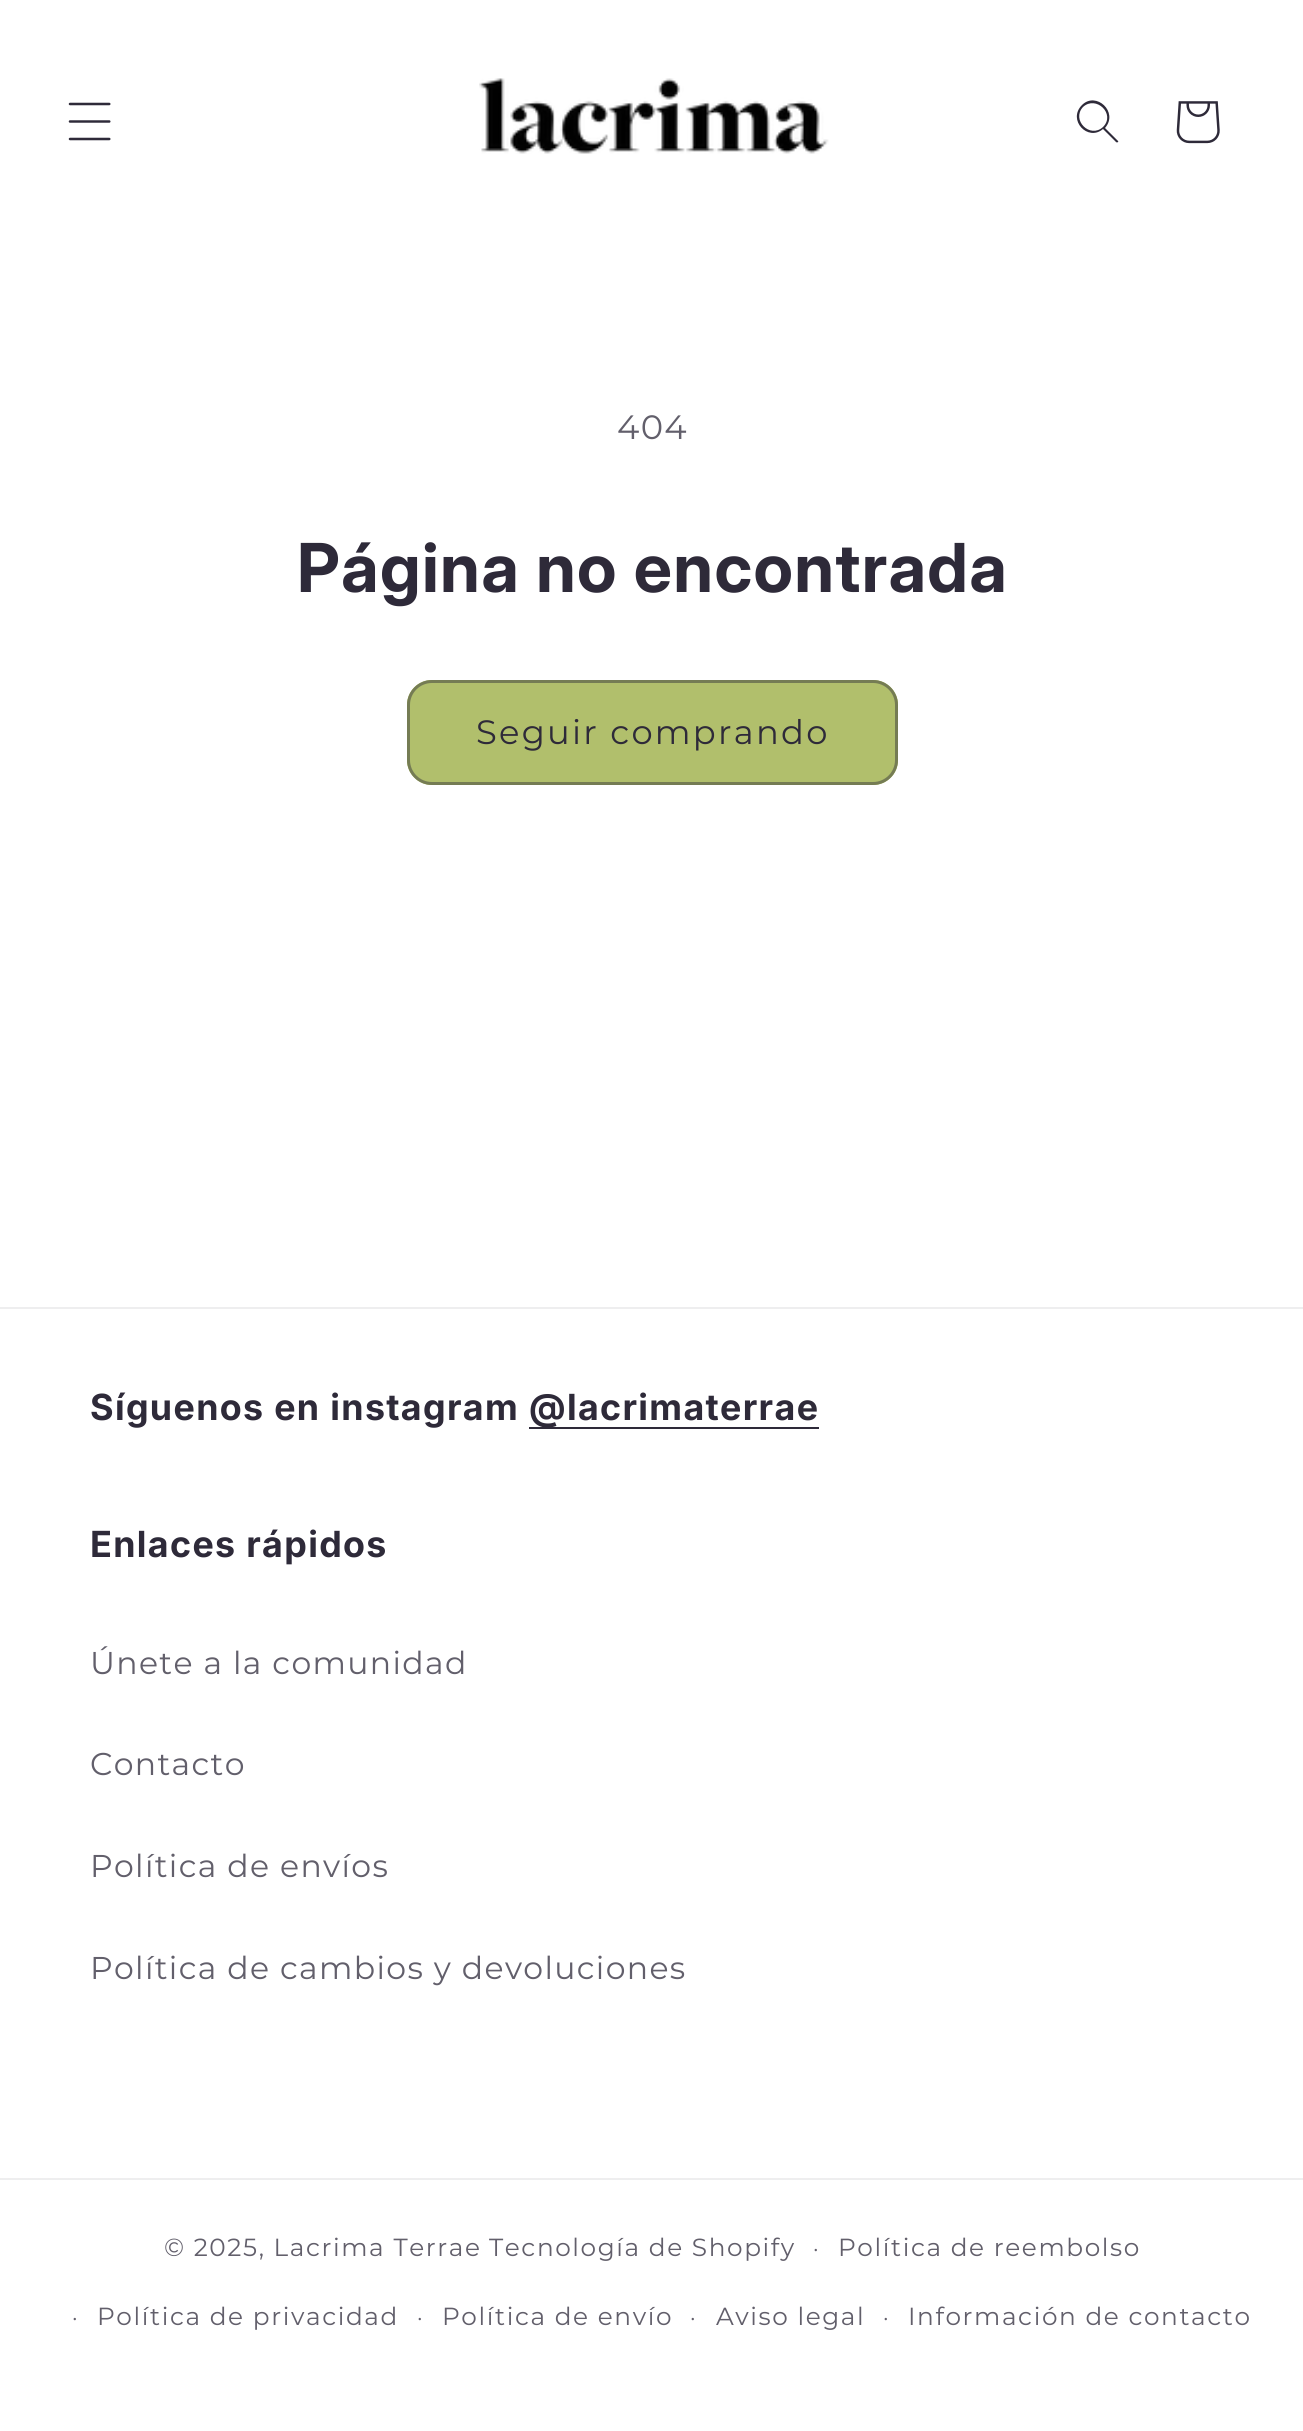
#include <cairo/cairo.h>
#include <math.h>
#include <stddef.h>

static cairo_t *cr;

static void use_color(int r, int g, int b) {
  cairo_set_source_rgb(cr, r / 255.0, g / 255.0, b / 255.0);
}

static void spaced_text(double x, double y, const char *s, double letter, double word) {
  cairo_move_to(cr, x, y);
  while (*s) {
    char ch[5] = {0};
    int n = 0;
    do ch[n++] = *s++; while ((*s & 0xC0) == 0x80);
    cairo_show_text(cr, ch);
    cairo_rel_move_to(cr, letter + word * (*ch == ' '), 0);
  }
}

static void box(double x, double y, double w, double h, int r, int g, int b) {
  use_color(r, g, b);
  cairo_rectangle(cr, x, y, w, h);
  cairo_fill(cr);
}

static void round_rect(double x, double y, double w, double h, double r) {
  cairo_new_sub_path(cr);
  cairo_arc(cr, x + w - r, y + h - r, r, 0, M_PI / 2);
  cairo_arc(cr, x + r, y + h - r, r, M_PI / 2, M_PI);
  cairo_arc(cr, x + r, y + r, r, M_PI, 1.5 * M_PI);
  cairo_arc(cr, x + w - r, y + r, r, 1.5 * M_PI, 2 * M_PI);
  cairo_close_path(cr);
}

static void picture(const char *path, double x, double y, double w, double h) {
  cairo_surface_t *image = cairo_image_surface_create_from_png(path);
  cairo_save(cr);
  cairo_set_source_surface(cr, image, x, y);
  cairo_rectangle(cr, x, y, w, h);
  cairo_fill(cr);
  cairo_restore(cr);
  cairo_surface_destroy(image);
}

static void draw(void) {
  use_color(255, 255, 255);
  cairo_paint(cr);
  picture("img_01.png", 68, 102, 43, 39);
  picture("img_02.png", 479, 78, 350, 76);
  use_color(46, 42, 57);
  cairo_set_fill_rule(cr, CAIRO_FILL_RULE_EVEN_ODD);
  cairo_new_path(cr);
  cairo_move_to(cr, 1103, 127);
  cairo_curve_to(cr, 1090, 139, 1071, 120, 1083, 107);
  cairo_curve_to(cr, 1096, 95, 1116, 114, 1103, 127);
  cairo_move_to(cr, 1103, 129);
  cairo_curve_to(cr, 1088, 142, 1067, 120, 1082, 105);
  cairo_curve_to(cr, 1096, 91, 1119, 112, 1105, 128);
  cairo_line_to(cr, 1118, 141);
  cairo_curve_to(cr, 1119, 142, 1117, 143, 1116, 142);
  cairo_close_path(cr);
  cairo_fill(cr);
  picture("img_03.png", 1176, 101, 44, 43);
  use_color(177, 191, 108);
  round_rect(407, 680, 491, 105, 25);
  cairo_fill(cr);
  round_rect(408, 681, 489, 103, 24);
  cairo_stroke(cr);
  round_rect(408.5, 681.5, 488, 102, 23.5);
  cairo_set_source_rgba(cr, 0.18, 0.165, 0.224, 0.45);
  cairo_set_line_width(cr, 3);
  cairo_stroke(cr);
  box(0, 1307, 1303, 2, 238, 238, 239);
  box(529, 1427, 290, 2, 46, 42, 57);
  box(0, 2178, 1303, 2, 238, 238, 239);
  cairo_select_font_face(cr, "Montserrat", CAIRO_FONT_SLANT_NORMAL, CAIRO_FONT_WEIGHT_NORMAL);
  cairo_set_font_size(cr, 33.75);
  use_color(98, 95, 107);
  spaced_text(617, 439, "404", 1.35, 0);
  cairo_select_font_face(cr, "Inter", CAIRO_FONT_SLANT_NORMAL, CAIRO_FONT_WEIGHT_BOLD);
  cairo_set_font_size(cr, 67.5);
  use_color(46, 42, 57);
  spaced_text(297, 592, "Página no encontrada", 1.35, 0);
  cairo_select_font_face(cr, "Montserrat", CAIRO_FONT_SLANT_NORMAL, CAIRO_FONT_WEIGHT_NORMAL);
  cairo_set_font_size(cr, 33.75);
  spaced_text(476, 744, "Seguir comprando", 2.25, 0);
  cairo_select_font_face(cr, "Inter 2", CAIRO_FONT_SLANT_NORMAL, CAIRO_FONT_WEIGHT_BOLD);
  cairo_set_font_size(cr, 36);
  spaced_text(90, 1420, "Síguenos en instagram", 1.35, 0);
  spaced_text(529, 1420, "@lacrimaterrae", 1.35, 0);
  spaced_text(90, 1557, "Enlaces rápidos", 1.35, 0);
  cairo_select_font_face(cr, "Montserrat", CAIRO_FONT_SLANT_NORMAL, CAIRO_FONT_WEIGHT_NORMAL);
  cairo_set_font_size(cr, 31.5);
  use_color(98, 95, 107);
  spaced_text(90, 1674, "Únete a la comunidad", 1.35, 0);
  spaced_text(90, 1775, "Contacto", 1.35, 0);
  spaced_text(90, 1877, "Política de envíos", 1.35, 0);
  spaced_text(90, 1979, "Política de cambios y devoluciones", 1.35, 0);
  cairo_set_font_size(cr, 22);
  spaced_text(813, 2256, "·", 1.6, 0);
  cairo_set_font_size(cr, 24.75);
  spaced_text(838, 2256, "Política de reembolso", 1.6, 0);
  cairo_set_font_size(cr, 22);
  spaced_text(72, 2325, "·", 1.6, 0);
  cairo_set_font_size(cr, 24.75);
  spaced_text(97, 2325, "Política de privacidad", 1.6, 0);
  cairo_set_font_size(cr, 22);
  spaced_text(417, 2325, "·", 1.6, 0);
  cairo_set_font_size(cr, 24.75);
  spaced_text(442, 2325, "Política de envío", 1.6, 0);
  cairo_set_font_size(cr, 22);
  spaced_text(690, 2325, "·", 1.6, 0);
  cairo_set_font_size(cr, 24.75);
  spaced_text(716, 2325, "Aviso legal", 1.6, 0);
  cairo_set_font_size(cr, 22);
  spaced_text(883, 2325, "·", 1.6, 0);
  cairo_set_font_size(cr, 24.75);
  spaced_text(908, 2325, "Información de contacto", 1.6, 0);
  spaced_text(164, 2256, "© 2025, Lacrima Terrae", 1.6, 0);
  spaced_text(489, 2256, "Tecnología de Shopify", 1.6, 0);
}

int main(void) {
  cairo_surface_t *surface = cairo_image_surface_create(CAIRO_FORMAT_RGB24, 1303, 2431);
  cr = cairo_create(surface);
  cairo_font_options_t *options = cairo_font_options_create();
  cairo_font_options_set_hint_metrics(options, CAIRO_HINT_METRICS_OFF);
  cairo_font_options_set_hint_style(options, CAIRO_HINT_STYLE_NONE);
  cairo_set_font_options(cr, options);
  cairo_set_miter_limit(cr, 4);
  draw();
  cairo_surface_write_to_png(surface, "out.png");
  cairo_font_options_destroy(options);
  cairo_destroy(cr);
  cairo_surface_destroy(surface);
  return 0;
}
